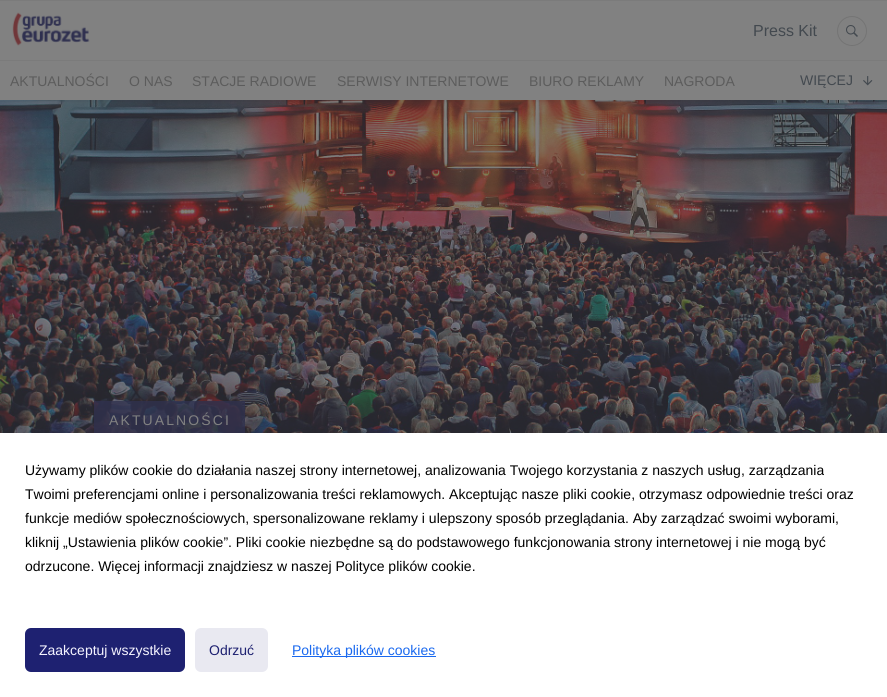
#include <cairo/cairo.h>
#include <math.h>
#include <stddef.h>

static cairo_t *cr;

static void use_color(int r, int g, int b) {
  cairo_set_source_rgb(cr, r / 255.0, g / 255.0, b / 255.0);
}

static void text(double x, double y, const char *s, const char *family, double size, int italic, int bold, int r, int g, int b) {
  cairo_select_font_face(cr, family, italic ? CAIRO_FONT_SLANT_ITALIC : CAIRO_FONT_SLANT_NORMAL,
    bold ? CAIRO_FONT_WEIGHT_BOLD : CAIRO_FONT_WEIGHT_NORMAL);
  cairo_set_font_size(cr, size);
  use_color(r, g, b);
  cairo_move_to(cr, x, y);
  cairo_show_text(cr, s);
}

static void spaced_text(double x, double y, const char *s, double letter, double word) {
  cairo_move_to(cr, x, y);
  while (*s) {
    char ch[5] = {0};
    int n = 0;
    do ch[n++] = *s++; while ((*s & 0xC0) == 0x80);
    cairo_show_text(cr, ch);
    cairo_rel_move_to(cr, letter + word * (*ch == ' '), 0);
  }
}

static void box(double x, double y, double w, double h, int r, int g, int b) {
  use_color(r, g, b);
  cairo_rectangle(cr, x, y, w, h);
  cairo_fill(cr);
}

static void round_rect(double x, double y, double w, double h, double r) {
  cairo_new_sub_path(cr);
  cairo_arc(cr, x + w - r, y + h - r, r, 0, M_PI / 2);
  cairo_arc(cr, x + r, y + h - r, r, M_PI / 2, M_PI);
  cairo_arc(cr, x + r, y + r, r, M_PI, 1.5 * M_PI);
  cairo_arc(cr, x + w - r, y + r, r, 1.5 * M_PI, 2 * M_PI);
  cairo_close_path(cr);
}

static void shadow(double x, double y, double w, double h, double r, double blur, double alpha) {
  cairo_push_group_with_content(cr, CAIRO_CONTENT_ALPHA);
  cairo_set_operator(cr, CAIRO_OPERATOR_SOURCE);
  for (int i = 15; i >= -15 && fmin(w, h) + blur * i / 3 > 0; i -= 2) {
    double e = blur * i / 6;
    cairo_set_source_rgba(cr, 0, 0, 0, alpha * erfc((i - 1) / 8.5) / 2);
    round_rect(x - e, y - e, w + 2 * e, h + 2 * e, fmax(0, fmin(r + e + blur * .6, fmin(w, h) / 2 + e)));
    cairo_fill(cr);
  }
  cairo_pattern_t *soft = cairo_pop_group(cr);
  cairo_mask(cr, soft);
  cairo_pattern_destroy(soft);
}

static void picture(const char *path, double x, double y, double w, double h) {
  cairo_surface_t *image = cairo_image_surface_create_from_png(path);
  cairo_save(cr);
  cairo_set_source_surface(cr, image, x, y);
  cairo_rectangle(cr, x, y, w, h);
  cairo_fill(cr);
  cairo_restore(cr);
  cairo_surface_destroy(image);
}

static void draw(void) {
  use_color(255, 255, 255);
  cairo_paint(cr);
  picture("img_04.png", 0, 100, 887, 333);
  use_color(37, 37, 37);
  shadow(0, 2, 887, 100, 0, 1, 0.06);
  box(0, 1, 887, 99, 129, 129, 129);
  box(0, 0, 887, 1, 123, 123, 123);
  picture("img_01.png", 12, 12, 78, 34);
  cairo_arc(cr, 852, 31, 14.5, 0, 2 * M_PI);
  use_color(116, 116, 116);
  cairo_set_line_width(cr, 1);
  cairo_stroke(cr);
  picture("img_02.png", 846, 25, 12, 12);
  box(0, 60, 887, 1, 123, 123, 123);
  picture("img_03.png", 863, 76, 10, 10);
  cairo_set_source_rgba(cr, 0.188, 0.192, 0.306, 0.8);
  cairo_rectangle(cr, 94, 401, 151, 32);
  cairo_fill(cr);
  use_color(30, 33, 113);
  round_rect(25, 628, 160, 44, 6);
  cairo_fill(cr);
  use_color(233, 233, 241);
  round_rect(195, 628, 73, 44, 6);
  cairo_fill(cr);
  box(292, 656, 144, 1, 26, 105, 239);
  text(753, 36, "Press Kit", "Liberation Sans", 16, 0, 0, 67, 73, 79);
  text(10, 86, "AKTUALNOŚCI", "Liberation Sans", 14, 0, 0, 92, 92, 92);
  text(129, 86, "O NAS", "Liberation Sans", 14, 0, 0, 92, 92, 92);
  text(192, 86, "STACJE RADIOWE", "Liberation Sans", 14, 0, 0, 92, 92, 92);
  text(337, 86, "SERWISY INTERNETOWE", "Liberation Sans", 14, 0, 0, 92, 92, 92);
  text(529, 86, "BIURO REKLAMY", "Liberation Sans", 14, 0, 0, 92, 92, 92);
  text(664, 86, "NAGRODA", "Liberation Sans", 14, 0, 0, 92, 92, 92);
  text(800, 85, "WIĘCEJ", "Liberation Sans", 14, 0, 0, 67, 73, 79);
  use_color(129, 129, 129);
  spaced_text(109, 425, "AKTUALNOŚCI", 2.1, 0);
  text(25, 475, "Używamy plików cookie do działania naszej strony internetowej, analizowania Twojego korzystania z naszych usług, zarządzania", "Liberation Sans", 14, 0, 0, 0, 0, 0);
  text(25, 499, "Twoimi preferencjami online i personalizowania treści reklamowych. Akceptując nasze pliki cookie, otrzymasz odpowiednie treści oraz", "Liberation Sans", 14, 0, 0, 0, 0, 0);
  text(25, 523, "funkcje mediów społecznościowych, spersonalizowane reklamy i ulepszony sposób przeglądania. Aby zarządzać swoimi wyborami,", "Liberation Sans", 14, 0, 0, 0, 0, 0);
  text(25, 547, "kliknij „Ustawienia plików cookie”. Pliki cookie niezbędne są do podstawowego funkcjonowania strony internetowej i nie mogą być", "Liberation Sans", 14, 0, 0, 0, 0, 0);
  text(25, 571, "odrzucone. Więcej informacji znajdziesz w naszej Polityce plików cookie.", "Liberation Sans", 14, 0, 0, 0, 0, 0);
  text(39, 655, "Zaakceptuj wszystkie", "Liberation Sans", 14, 0, 0, 245, 244, 255);
  text(209, 655, "Odrzuć", "Liberation Sans", 14, 0, 0, 30, 33, 113);
  text(292, 655, "Polityka plików cookies", "Liberation Sans", 14, 0, 0, 26, 105, 239);
}

int main(void) {
  cairo_surface_t *surface = cairo_image_surface_create(CAIRO_FORMAT_RGB24, 887, 697);
  cr = cairo_create(surface);
  cairo_font_options_t *options = cairo_font_options_create();
  cairo_font_options_set_hint_metrics(options, CAIRO_HINT_METRICS_OFF);
  cairo_font_options_set_hint_style(options, CAIRO_HINT_STYLE_NONE);
  cairo_set_font_options(cr, options);
  cairo_set_miter_limit(cr, 4);
  draw();
  cairo_surface_write_to_png(surface, "out.png");
  cairo_font_options_destroy(options);
  cairo_destroy(cr);
  cairo_surface_destroy(surface);
  return 0;
}
